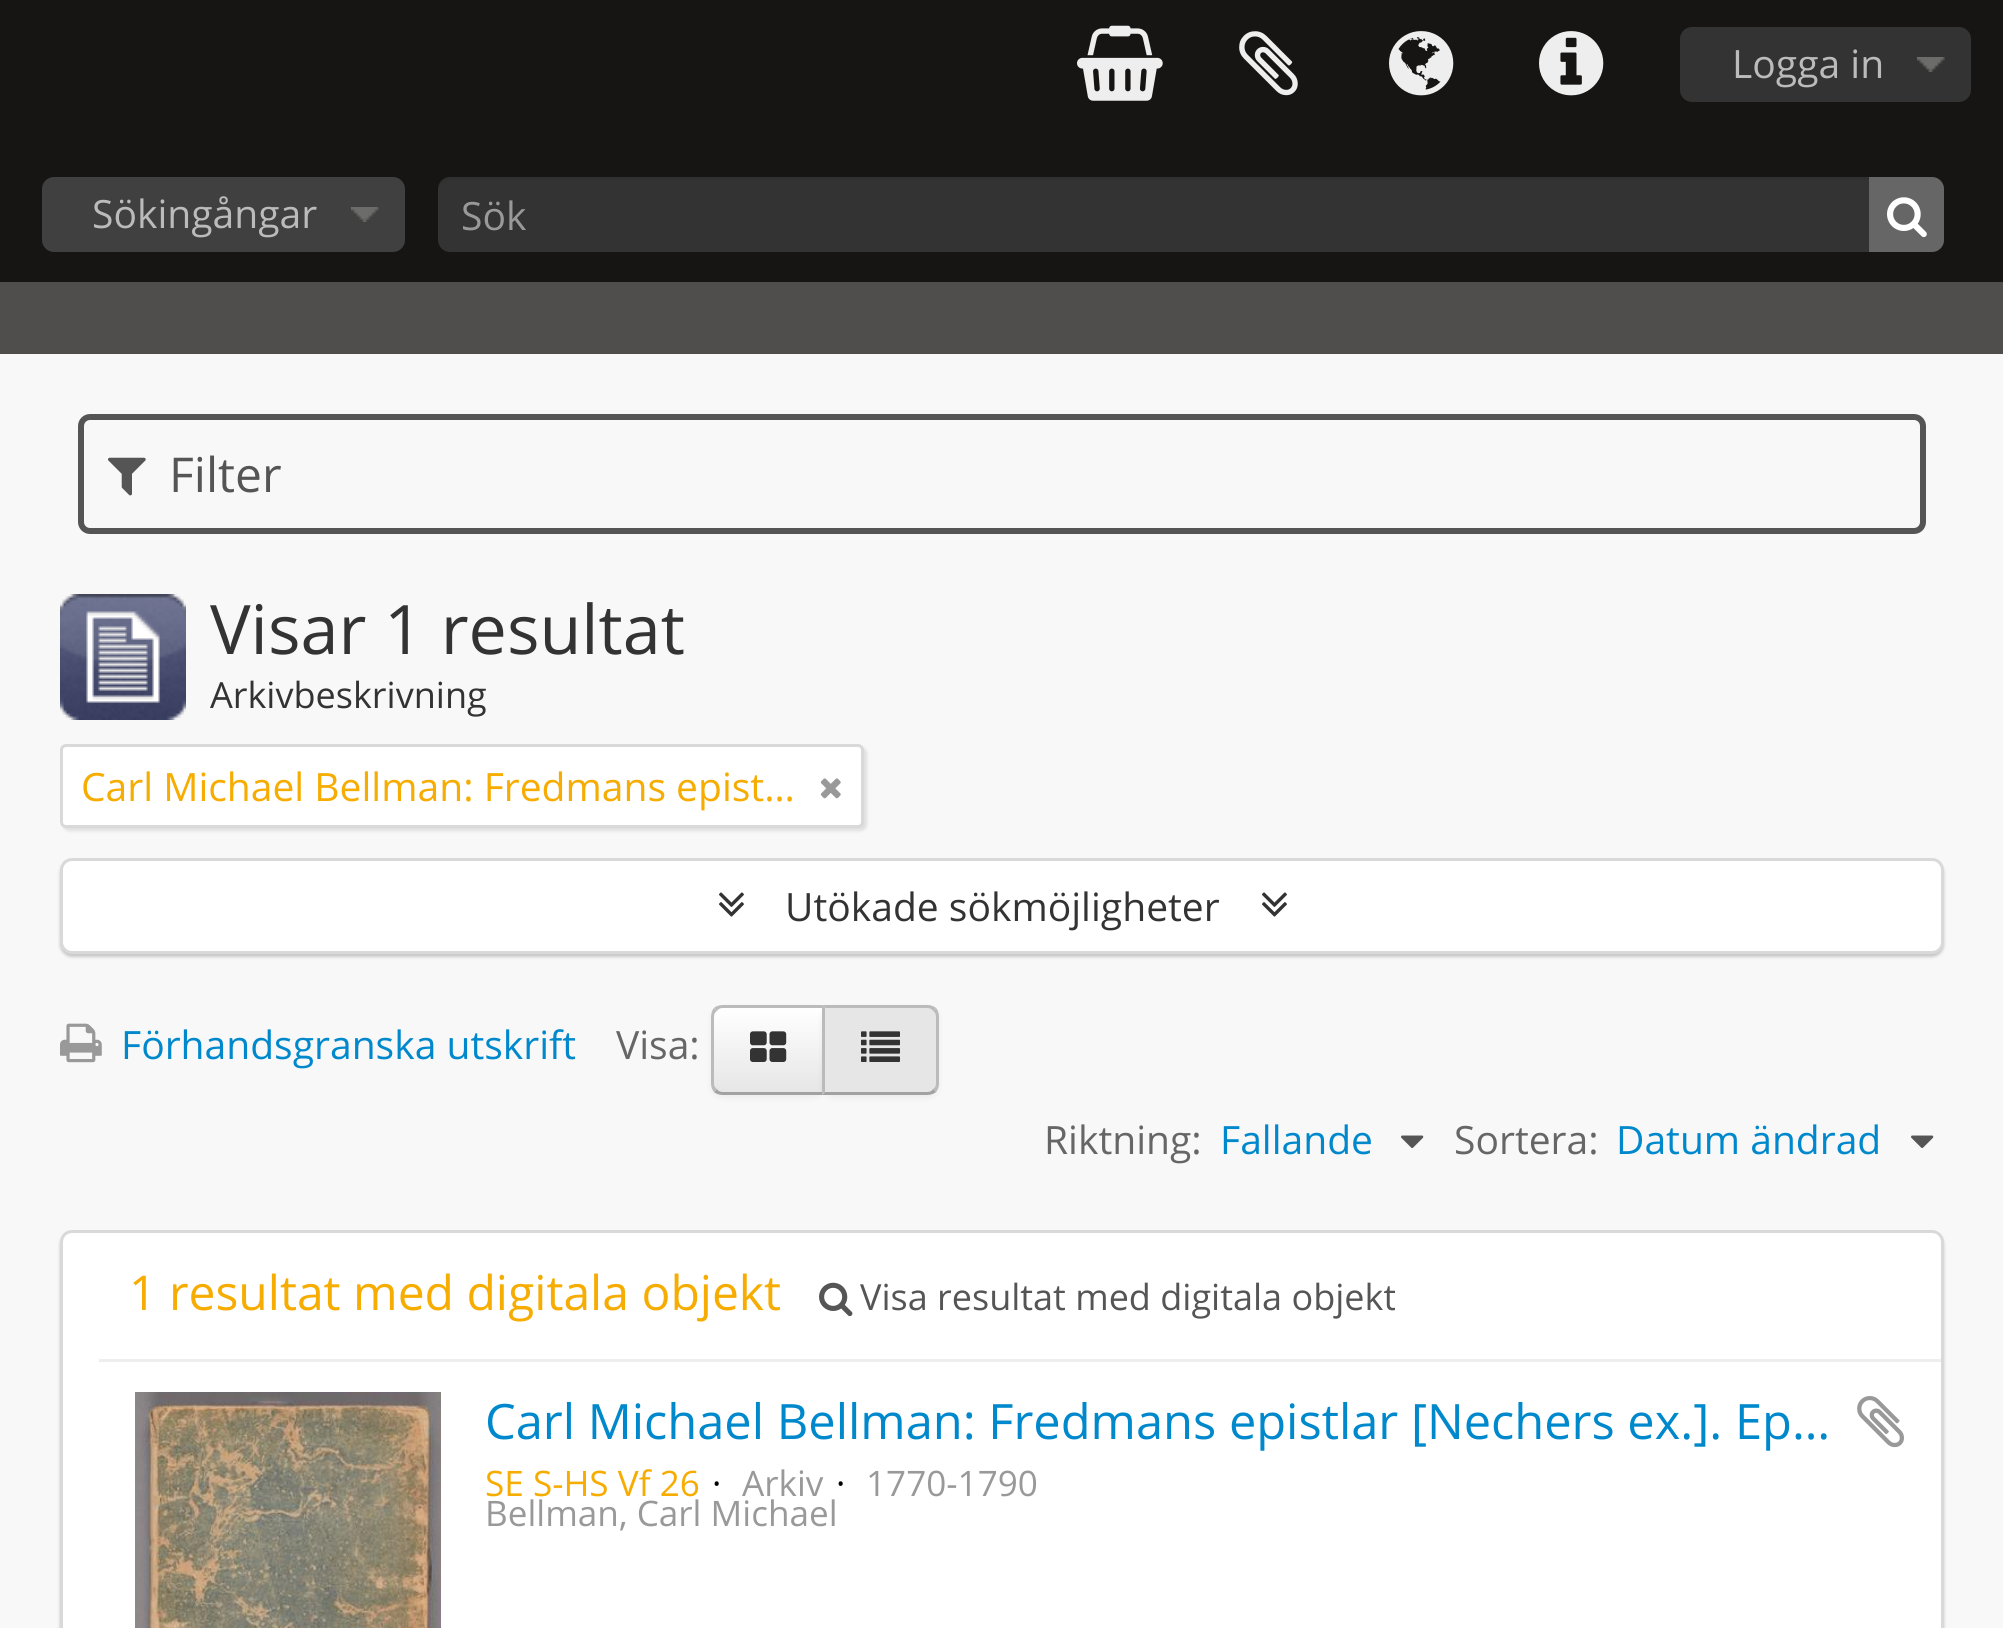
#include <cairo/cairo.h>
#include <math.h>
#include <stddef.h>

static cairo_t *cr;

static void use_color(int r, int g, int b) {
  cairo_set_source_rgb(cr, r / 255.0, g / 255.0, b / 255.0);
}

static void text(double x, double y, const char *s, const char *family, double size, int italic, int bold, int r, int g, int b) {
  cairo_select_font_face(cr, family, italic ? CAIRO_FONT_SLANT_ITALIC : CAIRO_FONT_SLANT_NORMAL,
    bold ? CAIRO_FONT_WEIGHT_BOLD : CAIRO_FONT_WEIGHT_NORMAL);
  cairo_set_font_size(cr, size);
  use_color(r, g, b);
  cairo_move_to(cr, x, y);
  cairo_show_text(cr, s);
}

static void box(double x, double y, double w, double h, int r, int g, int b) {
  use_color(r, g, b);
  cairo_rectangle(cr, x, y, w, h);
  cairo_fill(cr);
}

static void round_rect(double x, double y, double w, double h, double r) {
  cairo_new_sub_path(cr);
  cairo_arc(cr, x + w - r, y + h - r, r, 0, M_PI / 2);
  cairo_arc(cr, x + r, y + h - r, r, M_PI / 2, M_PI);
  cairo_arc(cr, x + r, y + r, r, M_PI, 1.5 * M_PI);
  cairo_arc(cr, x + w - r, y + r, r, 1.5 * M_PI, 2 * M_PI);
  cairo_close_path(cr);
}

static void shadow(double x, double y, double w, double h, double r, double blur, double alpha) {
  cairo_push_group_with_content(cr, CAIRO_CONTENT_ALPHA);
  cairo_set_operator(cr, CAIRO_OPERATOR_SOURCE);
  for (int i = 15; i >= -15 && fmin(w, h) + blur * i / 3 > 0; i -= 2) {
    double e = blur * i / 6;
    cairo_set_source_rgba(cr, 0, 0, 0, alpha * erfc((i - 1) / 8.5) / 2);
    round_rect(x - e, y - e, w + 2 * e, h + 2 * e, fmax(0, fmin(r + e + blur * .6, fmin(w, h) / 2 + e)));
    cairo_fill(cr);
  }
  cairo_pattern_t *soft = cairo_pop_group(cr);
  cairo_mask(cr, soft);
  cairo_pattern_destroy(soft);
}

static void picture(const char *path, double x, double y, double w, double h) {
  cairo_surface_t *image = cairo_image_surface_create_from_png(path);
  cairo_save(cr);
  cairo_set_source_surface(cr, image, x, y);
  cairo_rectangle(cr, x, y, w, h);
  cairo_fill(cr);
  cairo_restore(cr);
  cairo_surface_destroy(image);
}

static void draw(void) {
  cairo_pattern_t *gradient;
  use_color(248, 248, 248);
  cairo_paint(cr);
  box(0, 0, 2003, 282, 22, 21, 20);
  picture("img_01.png", 1077, 25, 86, 76);
  picture("img_02.png", 1239, 31, 59, 65);
  picture("img_03.png", 1389, 31, 65, 65);
  picture("img_04.png", 1539, 31, 65, 65);
  use_color(51, 51, 51);
  round_rect(1680, 27, 291, 75, 12);
  cairo_fill(cr);
  picture("img_05.png", 1917, 57, 28, 15);
  use_color(64, 64, 64);
  round_rect(42, 177, 363, 75, 12);
  cairo_fill(cr);
  picture("img_06.png", 351, 207, 28, 15);
  use_color(51, 51, 51);
  round_rect(438, 177, 1506, 75, 12);
  cairo_fill(cr);
  cairo_set_source_rgba(cr, 0, 0, 0, 0.07);
  cairo_new_path(cr);
  cairo_move_to(cr, 450, 180);
  cairo_line_to(cr, 1932, 180);
  cairo_curve_to(cr, 1939, 180, 1944, 185, 1944, 192);
  cairo_curve_to(cr, 1944, 184, 1941, 177, 1932, 177);
  cairo_line_to(cr, 450, 177);
  cairo_curve_to(cr, 441, 177, 438, 184, 438, 192);
  cairo_curve_to(cr, 438, 185, 443, 180, 450, 180);
  cairo_close_path(cr);
  cairo_fill(cr);
  use_color(102, 102, 102);
  cairo_new_path(cr);
  cairo_move_to(cr, 1869, 177);
  cairo_line_to(cr, 1932, 177);
  cairo_curve_to(cr, 1938.5, 177, 1944, 182.5, 1944, 189);
  cairo_line_to(cr, 1944, 240);
  cairo_curve_to(cr, 1944, 246.5, 1938.5, 252, 1932, 252);
  cairo_line_to(cr, 1869, 252);
  cairo_close_path(cr);
  cairo_fill(cr);
  picture("img_07.png", 1887, 197, 40, 41);
  box(0, 282, 2003, 72, 79, 78, 77);
  round_rect(81, 417, 1842, 114, 9);
  use_color(85, 85, 85);
  cairo_set_line_width(cr, 6);
  cairo_stroke(cr);
  picture("img_08.png", 108, 457, 38, 39);
  picture("img_09.png", 60, 594, 126, 126);
  use_color(0, 0, 0);
  shadow(63, 747, 804, 84, 6, 1.5, 0.1);
  use_color(255, 255, 255);
  round_rect(61.5, 745.5, 801, 81, 4.5);
  cairo_fill_preserve(cr);
  use_color(217, 217, 217);
  cairo_set_line_width(cr, 3);
  cairo_stroke(cr);
  picture("img_10.png", 820, 778, 21, 21);
  use_color(0, 0, 0);
  shadow(60, 861, 1884, 96, 12, 1.5, 0.2);
  use_color(255, 255, 255);
  round_rect(61.5, 859.5, 1881, 93, 10.5);
  cairo_fill_preserve(cr);
  use_color(217, 217, 217);
  cairo_stroke(cr);
  picture("img_11.png", 719, 892, 25, 25);
  picture("img_11.png", 1262, 892, 25, 25);
  picture("img_12.png", 60, 1023, 42, 40);
  use_color(0, 0, 0);
  shadow(711, 1008, 114, 90, 12, 3, 0.05);
  cairo_save(cr);
  cairo_new_path(cr);
  cairo_move_to(cr, 723, 1005);
  cairo_line_to(cr, 825, 1005);
  cairo_line_to(cr, 825, 1095);
  cairo_line_to(cr, 723, 1095);
  cairo_curve_to(cr, 716.5, 1095, 711, 1089.5, 711, 1083);
  cairo_line_to(cr, 711, 1017);
  cairo_curve_to(cr, 711, 1010.5, 716.5, 1005, 723, 1005);
  cairo_close_path(cr);
  cairo_clip(cr);
  gradient = cairo_pattern_create_linear(768, 1008, 768, 1092);
  cairo_pattern_add_color_stop_rgba(gradient, 0, 1, 1, 1, 1);
  cairo_pattern_add_color_stop_rgba(gradient, 1, 0.902, 0.902, 0.902, 1);
  cairo_set_source(cr, gradient);
  cairo_pattern_destroy(gradient);
  cairo_rectangle(cr, 711, 1008, 111, 84);
  cairo_fill(cr);
  cairo_restore(cr);
  use_color(187, 187, 187);
  cairo_new_path(cr);
  cairo_move_to(cr, 723, 1005);
  cairo_curve_to(cr, 720, 1005, 716, 1006, 714, 1008);
  cairo_line_to(cr, 717, 1011);
  cairo_curve_to(cr, 718, 1009, 720, 1008, 723, 1008);
  cairo_line_to(cr, 822, 1008);
  cairo_line_to(cr, 825, 1005);
  cairo_close_path(cr);
  cairo_fill(cr);
  use_color(162, 162, 162);
  cairo_new_path(cr);
  cairo_move_to(cr, 825, 1095);
  cairo_line_to(cr, 822, 1092);
  cairo_line_to(cr, 723, 1092);
  cairo_curve_to(cr, 720, 1092, 718, 1091, 717, 1089);
  cairo_line_to(cr, 714, 1092);
  cairo_curve_to(cr, 716, 1094, 720, 1095, 723, 1095);
  cairo_close_path(cr);
  cairo_fill(cr);
  use_color(187, 187, 187);
  cairo_new_path(cr);
  cairo_move_to(cr, 711, 1017);
  cairo_line_to(cr, 711, 1083);
  cairo_curve_to(cr, 711, 1086, 712, 1090, 714, 1092);
  cairo_line_to(cr, 717, 1089);
  cairo_curve_to(cr, 715, 1088, 714, 1086, 714, 1083);
  cairo_line_to(cr, 714, 1017);
  cairo_curve_to(cr, 714, 1014, 715, 1012, 717, 1011);
  cairo_line_to(cr, 714, 1008);
  cairo_curve_to(cr, 712, 1010, 711, 1014, 711, 1017);
  cairo_close_path(cr);
  cairo_fill(cr);
  picture("img_13.png", 750, 1031, 37, 31);
  use_color(0, 0, 0);
  shadow(822, 1008, 117, 90, 12, 3, 0.05);
  use_color(230, 230, 230);
  cairo_new_path(cr);
  cairo_move_to(cr, 822, 1005);
  cairo_line_to(cr, 927, 1005);
  cairo_curve_to(cr, 933.5, 1005, 939, 1010.5, 939, 1017);
  cairo_line_to(cr, 939, 1083);
  cairo_curve_to(cr, 939, 1089.5, 933.5, 1095, 927, 1095);
  cairo_line_to(cr, 822, 1095);
  cairo_close_path(cr);
  cairo_fill(cr);
  use_color(187, 187, 187);
  cairo_new_path(cr);
  cairo_move_to(cr, 822, 1005);
  cairo_line_to(cr, 825, 1008);
  cairo_line_to(cr, 927, 1008);
  cairo_curve_to(cr, 930, 1008, 932, 1009, 933, 1011);
  cairo_line_to(cr, 936, 1008);
  cairo_curve_to(cr, 934, 1006, 930, 1005, 927, 1005);
  cairo_close_path(cr);
  cairo_fill(cr);
  cairo_new_path(cr);
  cairo_move_to(cr, 939, 1083);
  cairo_line_to(cr, 939, 1017);
  cairo_curve_to(cr, 939, 1014, 938, 1010, 936, 1008);
  cairo_line_to(cr, 933, 1011);
  cairo_curve_to(cr, 935, 1012, 936, 1014, 936, 1017);
  cairo_line_to(cr, 936, 1083);
  cairo_curve_to(cr, 936, 1086, 935, 1088, 933, 1089);
  cairo_line_to(cr, 936, 1092);
  cairo_curve_to(cr, 938, 1090, 939, 1086, 939, 1083);
  cairo_close_path(cr);
  cairo_fill(cr);
  use_color(162, 162, 162);
  cairo_new_path(cr);
  cairo_move_to(cr, 927, 1095);
  cairo_curve_to(cr, 930, 1095, 934, 1094, 936, 1092);
  cairo_line_to(cr, 933, 1089);
  cairo_curve_to(cr, 932, 1091, 930, 1092, 927, 1092);
  cairo_line_to(cr, 825, 1092);
  cairo_line_to(cr, 822, 1095);
  cairo_close_path(cr);
  cairo_fill(cr);
  use_color(187, 187, 187);
  cairo_new_path(cr);
  cairo_move_to(cr, 822, 1005);
  cairo_line_to(cr, 822, 1095);
  cairo_line_to(cr, 825, 1092);
  cairo_line_to(cr, 825, 1008);
  cairo_close_path(cr);
  cairo_fill(cr);
  picture("img_14.png", 861, 1031, 39, 31);
  picture("img_15.png", 1401, 1135, 23, 13);
  picture("img_15.png", 1911, 1135, 23, 13);
  use_color(0, 0, 0);
  shadow(60, 1233, 1884, 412, 12, 1.5, 0.2);
  use_color(255, 255, 255);
  round_rect(61.5, 1231.5, 1881, 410, 10.5);
  cairo_fill_preserve(cr);
  use_color(217, 217, 217);
  cairo_stroke(cr);
  box(99, 1359, 1842, 3, 238, 238, 238);
  picture("img_16.png", 819, 1282, 34, 35);
  picture("img_17.png", 135, 1392, 306, 236);
  picture("img_18.png", 1857, 1396, 47, 52);
  text(1732, 78, "Logga in", "Open Sans", 39, 0, 0, 187, 187, 187);
  text(92, 228, "Sökingångar", "Open Sans", 39, 0, 0, 187, 187, 187);
  text(461, 230, "Sök", "Open Sans", 39, 0, 0, 153, 153, 153);
  text(169, 492, "Filter", "Open Sans", 48, 0, 0, 85, 85, 85);
  text(210, 654, "Visar 1 resultat", "Open Sans", 68.25, 0, 0, 51, 51, 51);
  text(210, 708, "Arkivbeskrivning", "Open Sans", 36, 0, 0, 51, 51, 51);
  text(81, 801, "Carl Michael Bellman: Fredmans epist…", "Open Sans", 39, 0, 0, 246, 172, 0);
  text(785, 921, "Utökade sökmöjligheter", "Open Sans", 39, 0, 0, 51, 51, 51);
  text(121, 1059, "Förhandsgranska utskrift", "Open Sans", 39, 0, 0, 0, 136, 204);
  text(616, 1059, "Visa:", "Open Sans", 39, 0, 0, 102, 102, 102);
  text(1044, 1154, "Riktning:", "Open Sans", 39, 0, 0, 102, 102, 102);
  text(1220, 1154, "Fallande", "Open Sans", 39, 0, 0, 0, 136, 204);
  text(1454, 1154, "Sortera:", "Open Sans", 39, 0, 0, 102, 102, 102);
  text(1616, 1154, "Datum ändrad", "Open Sans", 39, 0, 0, 0, 136, 204);
  text(129, 1310, "1 resultat med digitala objekt", "Open Sans", 48, 0, 0, 246, 172, 0);
  text(860, 1310, "Visa resultat med digitala objekt", "Open Sans", 36, 0, 0, 85, 85, 85);
  text(485, 1439, "Carl Michael Bellman: Fredmans epistlar [Nechers ex.]. Ep…", "Open Sans", 48.75, 0, 0, 0, 136, 204);
  text(485, 1496, "SE S-HS Vf 26", "Open Sans", 35.1, 0, 0, 246, 172, 0);
  text(712, 1496, "·", "Open Sans", 35.1, 0, 0, 0, 0, 0);
  text(742, 1496, "Arkiv", "Open Sans", 35.1, 0, 0, 153, 153, 153);
  text(836, 1496, "·", "Open Sans", 35.1, 0, 0, 0, 0, 0);
  text(866, 1496, "1770-1790", "Open Sans", 35.1, 0, 0, 153, 153, 153);
  text(485, 1526, "Bellman, Carl Michael", "Open Sans", 35.1, 0, 0, 153, 153, 153);
}

int main(void) {
  cairo_surface_t *surface = cairo_image_surface_create(CAIRO_FORMAT_RGB24, 2003, 1628);
  cr = cairo_create(surface);
  cairo_font_options_t *options = cairo_font_options_create();
  cairo_font_options_set_hint_metrics(options, CAIRO_HINT_METRICS_OFF);
  cairo_font_options_set_hint_style(options, CAIRO_HINT_STYLE_NONE);
  cairo_set_font_options(cr, options);
  cairo_set_miter_limit(cr, 4);
  draw();
  cairo_surface_write_to_png(surface, "out.png");
  cairo_font_options_destroy(options);
  cairo_destroy(cr);
  cairo_surface_destroy(surface);
  return 0;
}
